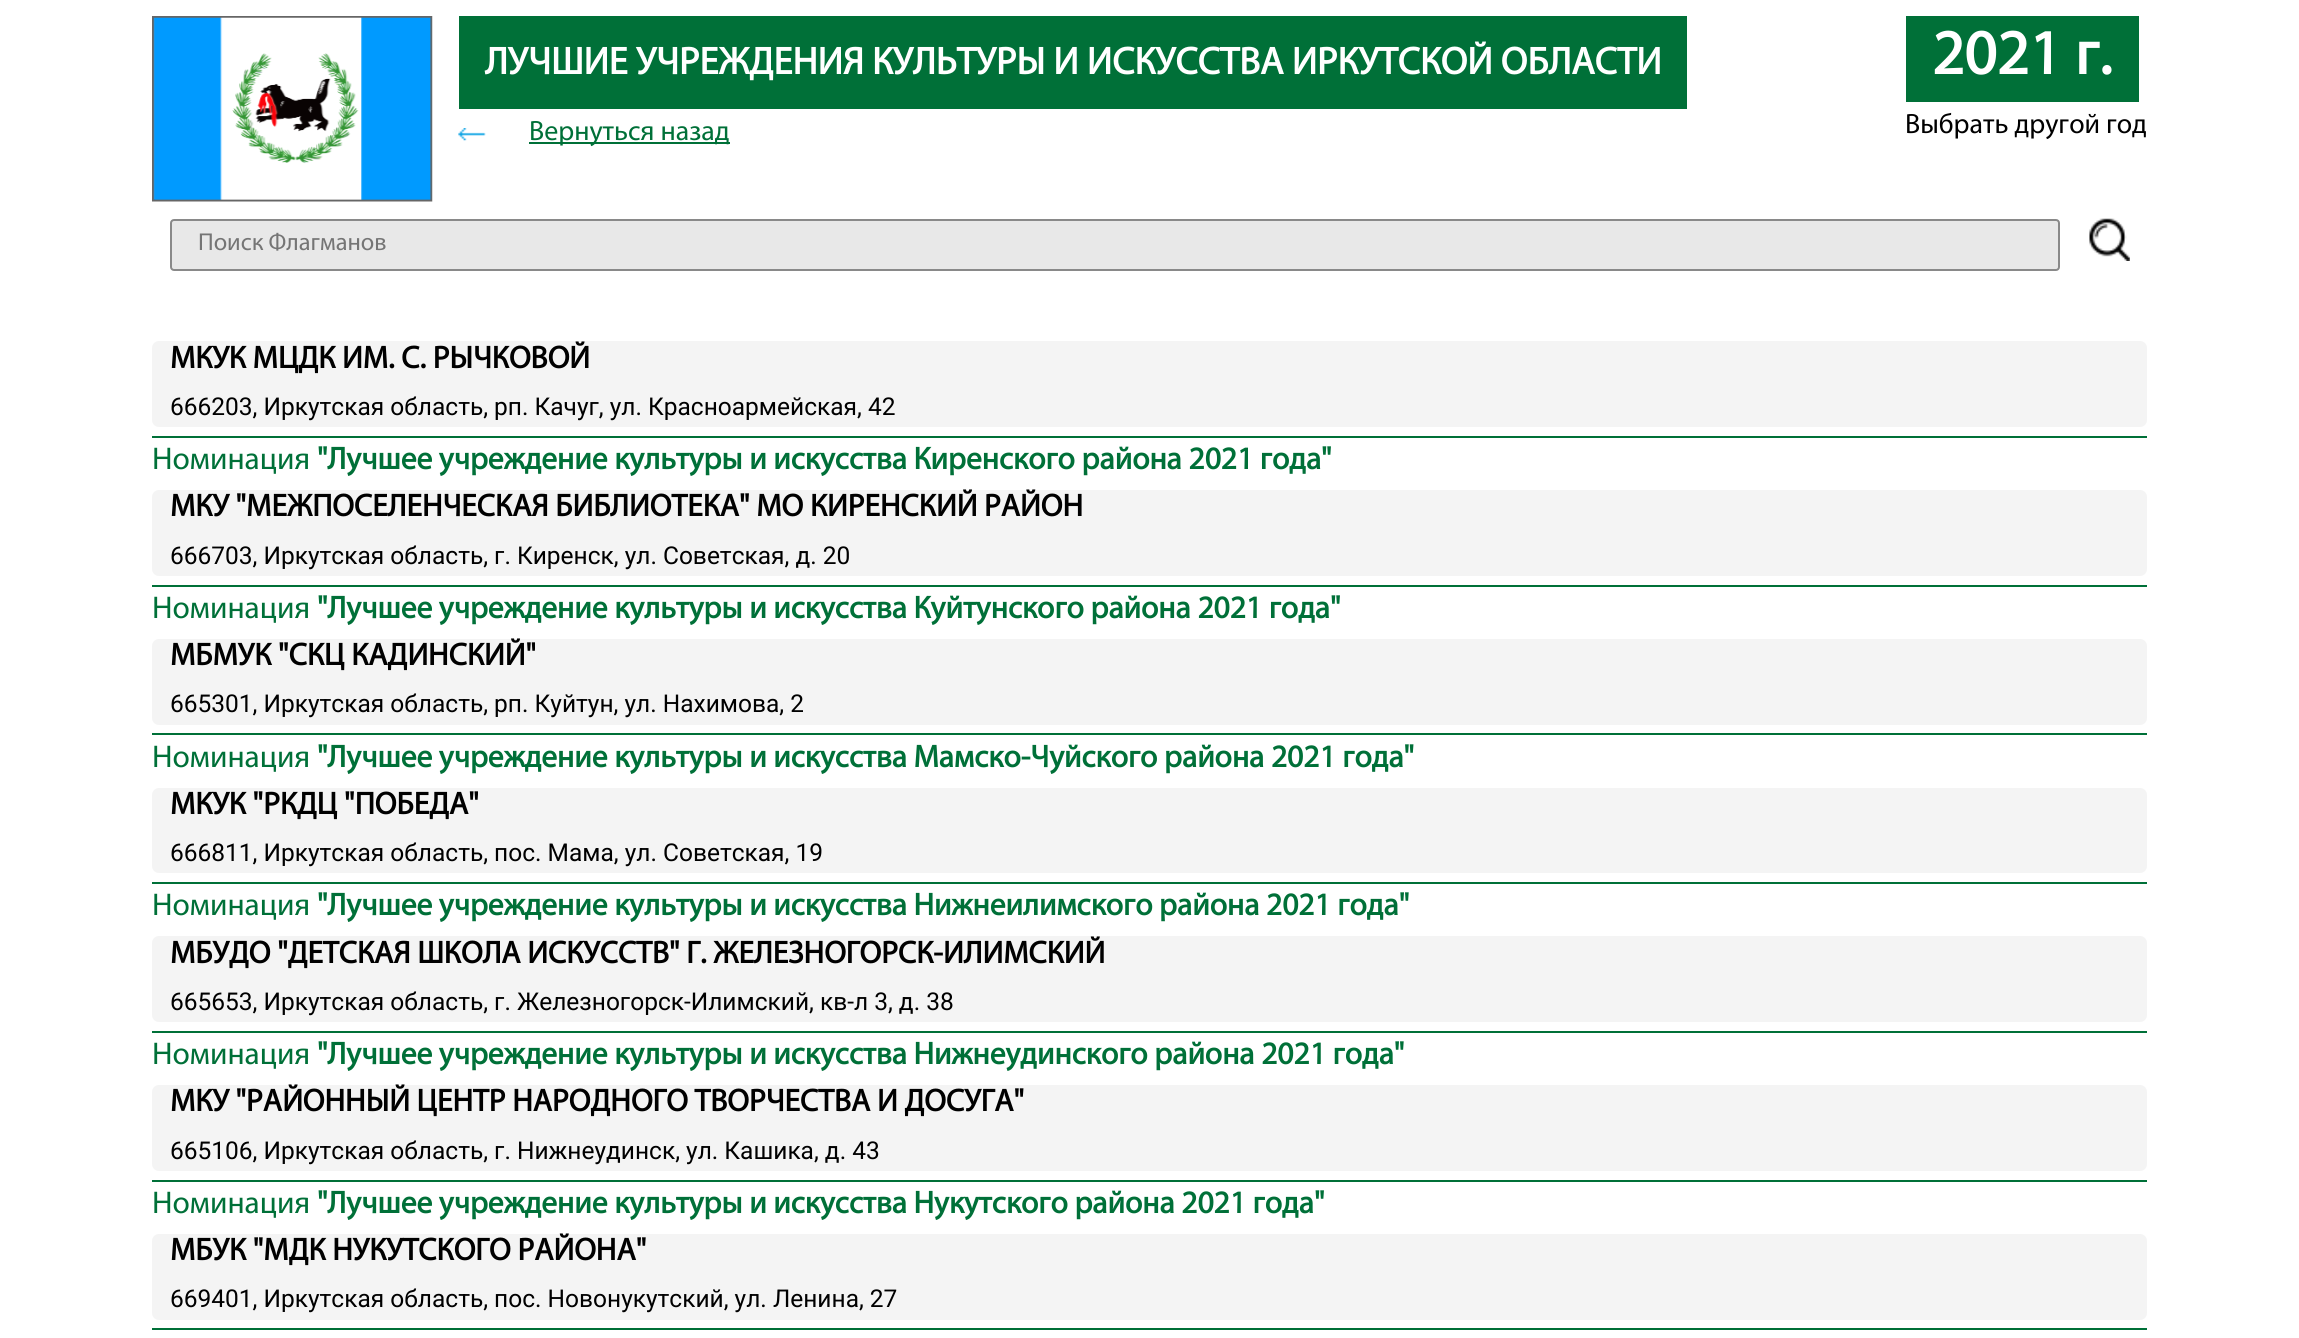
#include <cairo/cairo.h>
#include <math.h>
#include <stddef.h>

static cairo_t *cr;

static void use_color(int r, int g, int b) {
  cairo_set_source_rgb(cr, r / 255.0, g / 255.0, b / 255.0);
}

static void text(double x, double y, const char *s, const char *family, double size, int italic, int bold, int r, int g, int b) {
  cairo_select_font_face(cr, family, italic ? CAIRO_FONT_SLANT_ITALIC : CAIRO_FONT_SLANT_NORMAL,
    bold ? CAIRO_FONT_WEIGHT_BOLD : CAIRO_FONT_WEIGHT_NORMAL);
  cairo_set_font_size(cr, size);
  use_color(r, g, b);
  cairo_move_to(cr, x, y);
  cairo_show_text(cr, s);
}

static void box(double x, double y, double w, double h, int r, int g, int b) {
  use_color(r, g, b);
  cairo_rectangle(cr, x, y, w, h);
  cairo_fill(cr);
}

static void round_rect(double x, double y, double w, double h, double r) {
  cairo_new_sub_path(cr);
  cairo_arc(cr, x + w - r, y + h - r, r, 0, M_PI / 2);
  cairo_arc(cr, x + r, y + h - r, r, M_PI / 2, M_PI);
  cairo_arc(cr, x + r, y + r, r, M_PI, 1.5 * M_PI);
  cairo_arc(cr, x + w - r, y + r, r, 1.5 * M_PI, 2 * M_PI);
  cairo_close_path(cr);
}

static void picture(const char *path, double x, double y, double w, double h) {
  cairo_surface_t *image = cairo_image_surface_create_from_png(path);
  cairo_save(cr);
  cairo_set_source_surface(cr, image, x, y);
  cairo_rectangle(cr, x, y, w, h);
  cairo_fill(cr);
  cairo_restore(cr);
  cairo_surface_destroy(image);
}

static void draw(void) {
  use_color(255, 255, 255);
  cairo_paint(cr);
  cairo_rectangle(cr, 153, 17, 278, 183);
  use_color(102, 102, 102);
  cairo_stroke(cr);
  picture("img_01.png", 152, 16, 281, 186);
  box(459, 16, 1228, 93, 0, 112, 56);
  picture("img_02.png", 458, 128, 28, 13);
  box(529, 142, 201, 2, 0, 112, 56);
  box(1906, 16, 233, 86, 0, 112, 56);
  use_color(232, 232, 232);
  round_rect(171, 220, 1888, 50, 3);
  cairo_fill_preserve(cr);
  use_color(137, 137, 137);
  cairo_stroke(cr);
  picture("img_03.png", 2089, 218, 41, 43);
  use_color(244, 244, 244);
  round_rect(152, 341, 1995, 86, 7);
  cairo_fill(cr);
  box(152, 436, 1995, 2, 0, 112, 56);
  use_color(244, 244, 244);
  round_rect(152, 490, 1995, 86, 7);
  cairo_fill(cr);
  box(152, 585, 1995, 2, 0, 112, 56);
  use_color(244, 244, 244);
  round_rect(152, 639, 1995, 86, 7);
  cairo_fill(cr);
  box(152, 733, 1995, 2, 0, 112, 56);
  use_color(244, 244, 244);
  round_rect(152, 788, 1995, 85, 7);
  cairo_fill(cr);
  box(152, 882, 1995, 2, 0, 112, 56);
  use_color(244, 244, 244);
  round_rect(152, 936, 1995, 86, 7);
  cairo_fill(cr);
  box(152, 1031, 1995, 2, 0, 112, 56);
  use_color(244, 244, 244);
  round_rect(152, 1085, 1995, 86, 7);
  cairo_fill(cr);
  box(152, 1180, 1995, 2, 0, 112, 56);
  use_color(244, 244, 244);
  round_rect(152, 1234, 1995, 86, 7);
  cairo_fill(cr);
  box(152, 1328, 1995, 2, 0, 112, 56);
  text(485, 74, "ЛУЧШИЕ УЧРЕЖДЕНИЯ КУЛЬТУРЫ И ИСКУССТВА ИРКУТСКОЙ ОБЛАСТИ", "Myriad", 38.5, 0, 1, 255, 255, 255);
  text(529, 140, "Вернуться назад", "Myriad", 28, 0, 0, 0, 112, 56);
  text(1932, 74, "2021 г.", "Myriad", 63, 0, 1, 255, 255, 255);
  text(1905, 133, "Выбрать другой год", "Myriad", 28, 0, 0, 0, 0, 0);
  text(198, 250, "Поиск Флагманов", "Myriad", 24.5, 0, 0, 117, 117, 117);
  text(170, 368, "МКУК МЦДК ИМ. С. РЫЧКОВОЙ", "Myriad", 31.5, 0, 1, 0, 0, 0);
  text(170, 415, "666203, Иркутская область, рп. Качуг, ул. Красноармейская, 42", "Roboto", 24.5, 0, 0, 0, 0, 0);
  text(152, 469, "Номинация", "Myriad", 31.5, 0, 0, 0, 112, 56);
  text(317, 469, "\"Лучшее учреждение культуры и искусства Киренского района 2021 года\"", "Myriad", 31.5, 0, 1, 0, 112, 56);
  text(170, 516, "МКУ \"МЕЖПОСЕЛЕНЧЕСКАЯ БИБЛИОТЕКА\" МО КИРЕНСКИЙ РАЙОН", "Myriad", 31.5, 0, 1, 0, 0, 0);
  text(170, 564, "666703, Иркутская область, г. Киренск, ул. Советская, д. 20", "Roboto", 24.5, 0, 0, 0, 0, 0);
  text(152, 618, "Номинация", "Myriad", 31.5, 0, 0, 0, 112, 56);
  text(317, 618, "\"Лучшее учреждение культуры и искусства Куйтунского района 2021 года\"", "Myriad", 31.5, 0, 1, 0, 112, 56);
  text(170, 665, "МБМУК \"СКЦ КАДИНСКИЙ\"", "Myriad", 31.5, 0, 1, 0, 0, 0);
  text(170, 712, "665301, Иркутская область, рп. Куйтун, ул. Нахимова, 2", "Roboto", 24.5, 0, 0, 0, 0, 0);
  text(152, 767, "Номинация", "Myriad", 31.5, 0, 0, 0, 112, 56);
  text(317, 767, "\"Лучшее учреждение культуры и искусства Мамско-Чуйского района 2021 года\"", "Myriad", 31.5, 0, 1, 0, 112, 56);
  text(170, 814, "МКУК \"РКДЦ \"ПОБЕДА\"", "Myriad", 31.5, 0, 1, 0, 0, 0);
  text(170, 861, "666811, Иркутская область, пос. Мама, ул. Советская, 19", "Roboto", 24.5, 0, 0, 0, 0, 0);
  text(152, 915, "Номинация", "Myriad", 31.5, 0, 0, 0, 112, 56);
  text(317, 915, "\"Лучшее учреждение культуры и искусства Нижнеилимского района 2021 года\"", "Myriad", 31.5, 0, 1, 0, 112, 56);
  text(170, 963, "МБУДО \"ДЕТСКАЯ ШКОЛА ИСКУССТВ\" Г. ЖЕЛЕЗНОГОРСК-ИЛИМСКИЙ", "Myriad", 31.5, 0, 1, 0, 0, 0);
  text(170, 1010, "665653, Иркутская область, г. Железногорск-Илимский, кв-л 3, д. 38", "Roboto", 24.5, 0, 0, 0, 0, 0);
  text(152, 1064, "Номинация", "Myriad", 31.5, 0, 0, 0, 112, 56);
  text(317, 1064, "\"Лучшее учреждение культуры и искусства Нижнеудинского района 2021 года\"", "Myriad", 31.5, 0, 1, 0, 112, 56);
  text(170, 1111, "МКУ \"РАЙОННЫЙ ЦЕНТР НАРОДНОГО ТВОРЧЕСТВА И ДОСУГА\"", "Myriad", 31.5, 0, 1, 0, 0, 0);
  text(170, 1159, "665106, Иркутская область, г. Нижнеудинск, ул. Кашика, д. 43", "Roboto", 24.5, 0, 0, 0, 0, 0);
  text(152, 1213, "Номинация", "Myriad", 31.5, 0, 0, 0, 112, 56);
  text(317, 1213, "\"Лучшее учреждение культуры и искусства Нукутского района 2021 года\"", "Myriad", 31.5, 0, 1, 0, 112, 56);
  text(170, 1260, "МБУК \"МДК НУКУТСКОГО РАЙОНА\"", "Myriad", 31.5, 0, 1, 0, 0, 0);
  text(170, 1307, "669401, Иркутская область, пос. Новонукутский, ул. Ленина, 27", "Roboto", 24.5, 0, 0, 0, 0, 0);
}

int main(void) {
  cairo_surface_t *surface = cairo_image_surface_create(CAIRO_FORMAT_RGB24, 2299, 1338);
  cr = cairo_create(surface);
  cairo_font_options_t *options = cairo_font_options_create();
  cairo_font_options_set_hint_metrics(options, CAIRO_HINT_METRICS_OFF);
  cairo_font_options_set_hint_style(options, CAIRO_HINT_STYLE_NONE);
  cairo_set_font_options(cr, options);
  cairo_set_miter_limit(cr, 4);
  draw();
  cairo_surface_write_to_png(surface, "out.png");
  cairo_font_options_destroy(options);
  cairo_destroy(cr);
  cairo_surface_destroy(surface);
  return 0;
}
